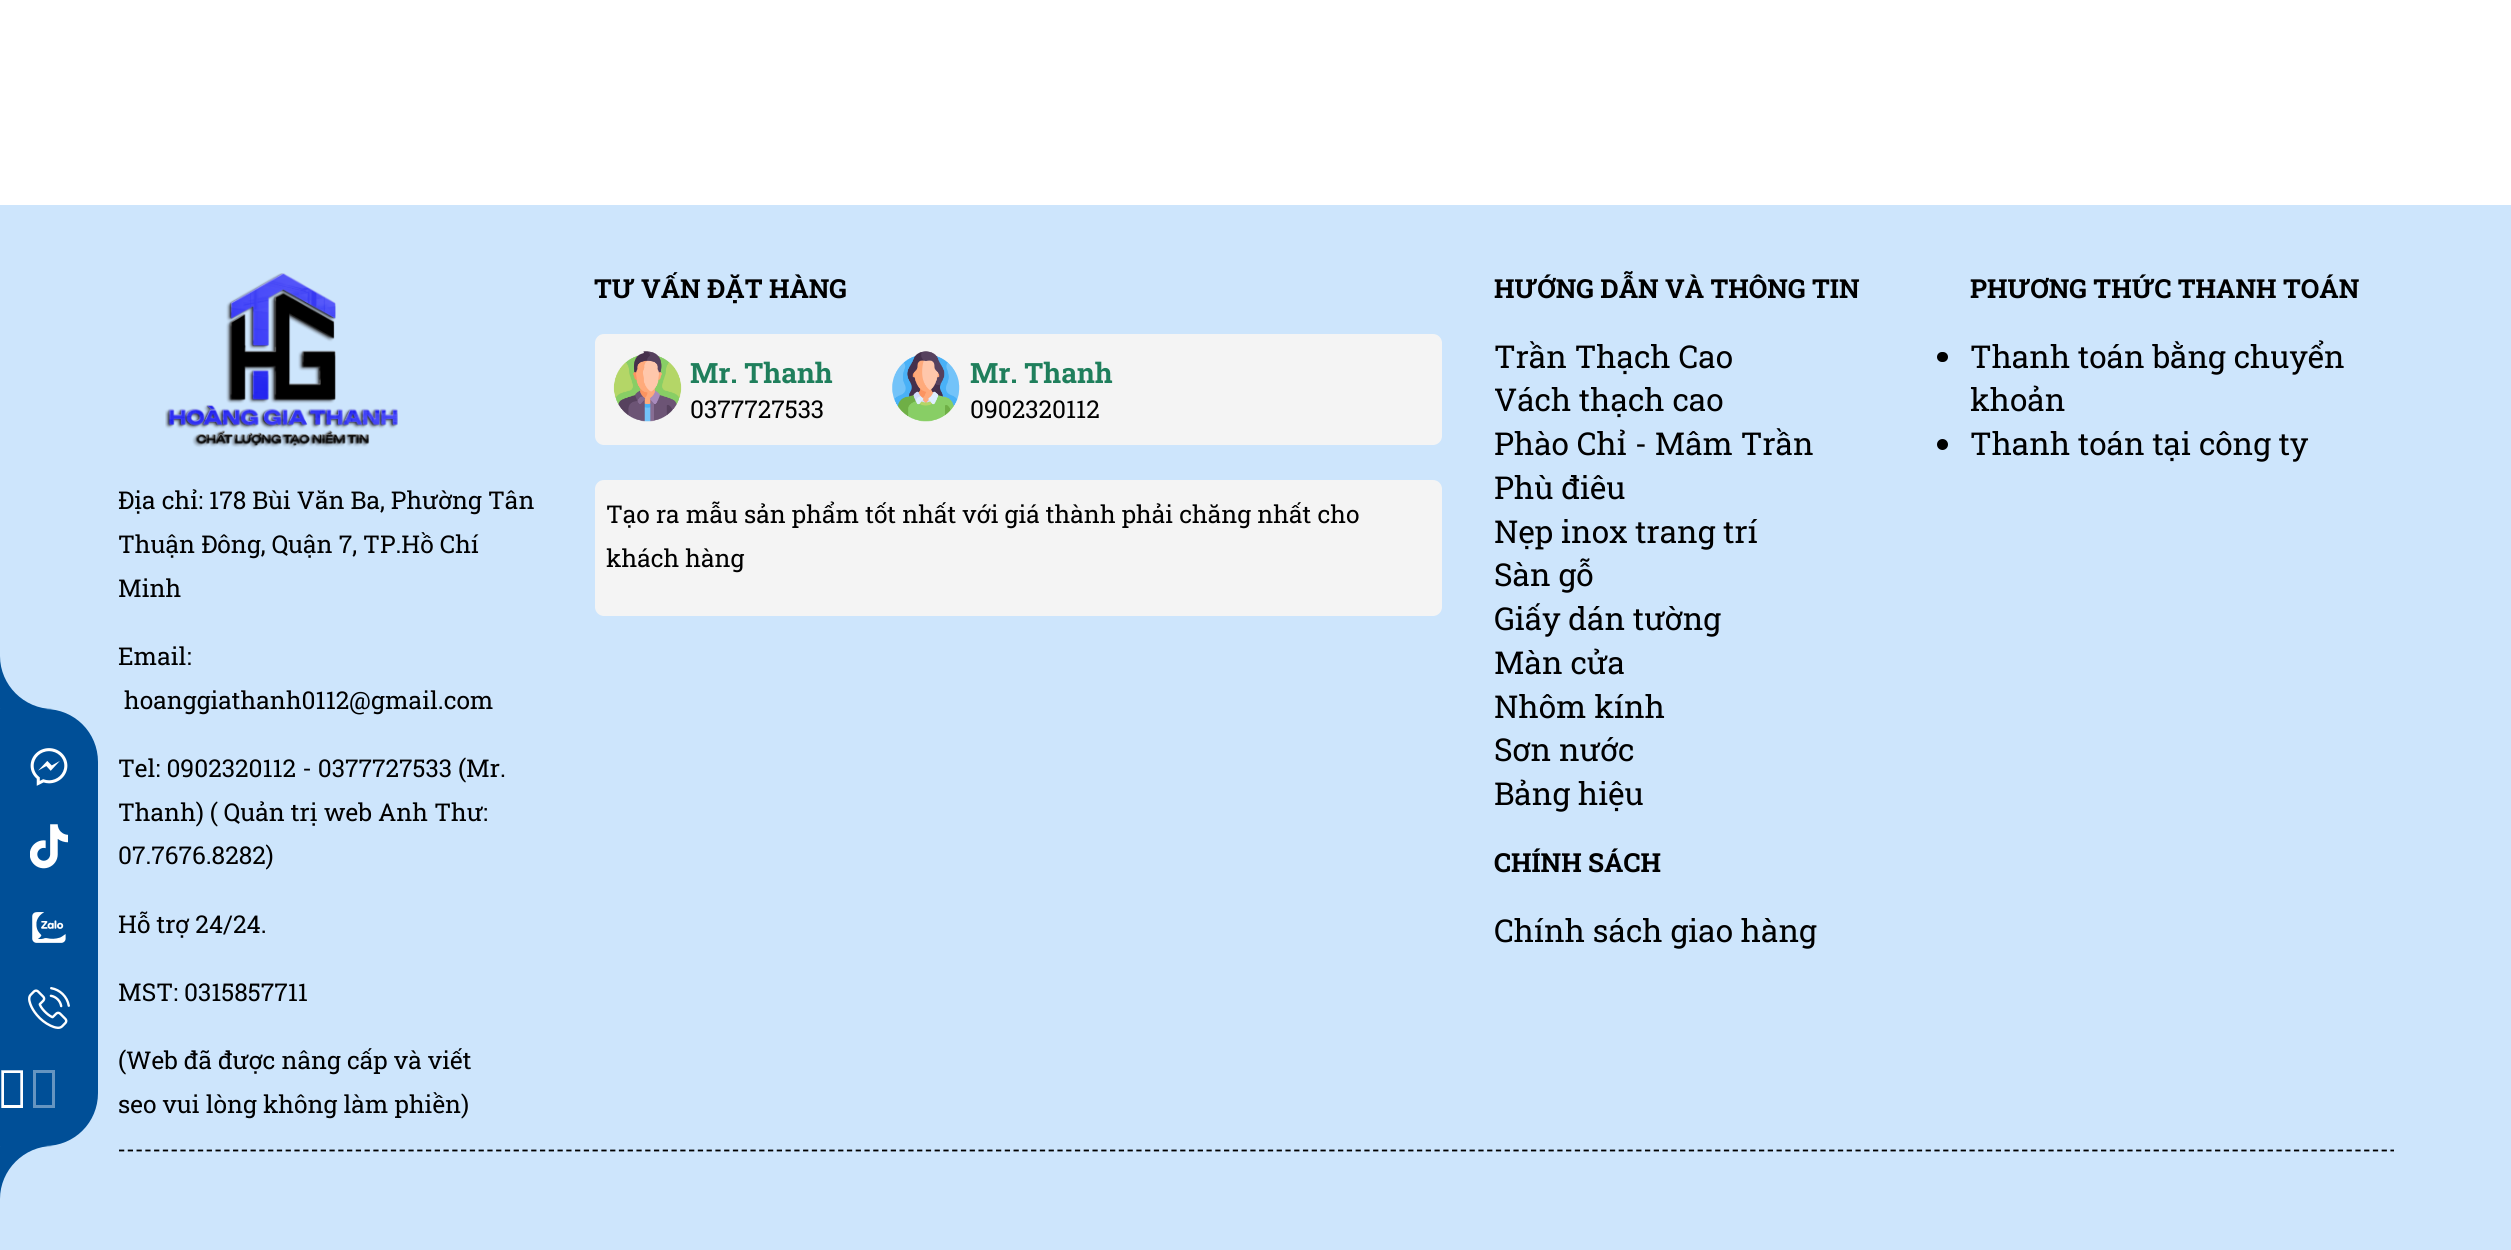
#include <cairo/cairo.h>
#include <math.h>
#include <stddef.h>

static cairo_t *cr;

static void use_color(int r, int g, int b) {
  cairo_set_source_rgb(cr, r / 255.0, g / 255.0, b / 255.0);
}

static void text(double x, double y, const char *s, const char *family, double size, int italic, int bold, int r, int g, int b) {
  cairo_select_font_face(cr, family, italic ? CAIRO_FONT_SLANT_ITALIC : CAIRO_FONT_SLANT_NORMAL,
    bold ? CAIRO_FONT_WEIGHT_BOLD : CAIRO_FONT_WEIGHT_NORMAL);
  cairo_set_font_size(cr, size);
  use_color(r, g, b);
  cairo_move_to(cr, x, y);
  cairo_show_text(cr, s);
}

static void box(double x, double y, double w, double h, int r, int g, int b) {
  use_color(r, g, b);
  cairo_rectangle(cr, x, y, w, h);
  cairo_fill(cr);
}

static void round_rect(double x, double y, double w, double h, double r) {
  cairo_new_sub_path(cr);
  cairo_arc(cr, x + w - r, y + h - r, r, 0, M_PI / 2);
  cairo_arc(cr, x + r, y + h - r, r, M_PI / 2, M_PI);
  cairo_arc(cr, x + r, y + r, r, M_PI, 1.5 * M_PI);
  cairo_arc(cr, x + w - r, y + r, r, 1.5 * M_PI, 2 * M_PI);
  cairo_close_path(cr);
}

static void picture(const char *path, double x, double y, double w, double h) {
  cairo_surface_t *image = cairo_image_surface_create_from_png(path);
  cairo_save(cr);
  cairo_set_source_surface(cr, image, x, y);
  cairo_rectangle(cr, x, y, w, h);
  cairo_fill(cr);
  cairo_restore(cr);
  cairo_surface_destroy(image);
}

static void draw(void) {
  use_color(255, 255, 255);
  cairo_paint(cr);
  box(0, 205, 2511, 1045, 205, 229, 252);
  use_color(0, 79, 151);
  cairo_new_path(cr);
  cairo_move_to(cr, 0, 709);
  cairo_line_to(cr, 45, 709);
  cairo_curve_to(cr, 74.5, 709, 98, 732.5, 98, 762);
  cairo_line_to(cr, 98, 1093);
  cairo_curve_to(cr, 98, 1122.5, 74.5, 1146, 45, 1146);
  cairo_line_to(cr, 0, 1146);
  cairo_close_path(cr);
  cairo_fill(cr);
  cairo_new_path(cr);
  cairo_move_to(cr, -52, 656);
  cairo_curve_to(cr, -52, 685, -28, 709, 1, 709);
  cairo_line_to(cr, 53, 709);
  cairo_curve_to(cr, 24, 709, 0, 685, 0, 656);
  cairo_line_to(cr, 53, 656);
  cairo_close_path(cr);
  cairo_fill(cr);
  picture("img_01.png", 30, 748, 38, 38);
  picture("img_02.png", 30, 824, 38, 45);
  picture("img_03.png", 32, 912, 34, 31);
  picture("img_04.png", 28, 987, 42, 42);
  use_color(255, 255, 255);
  cairo_new_path(cr);
  cairo_move_to(cr, 1.5, 1108);
  cairo_line_to(cr, 1.5, 1070.5);
  cairo_line_to(cr, 23, 1070.5);
  cairo_line_to(cr, 23, 1108);
  cairo_close_path(cr);
  cairo_move_to(cr, 4, 1105);
  cairo_line_to(cr, 20.5, 1105);
  cairo_line_to(cr, 20.5, 1073);
  cairo_line_to(cr, 4, 1073);
  cairo_close_path(cr);
  cairo_fill(cr);
  cairo_set_source_rgba(cr, 1, 1, 1, 0.4);
  cairo_new_path(cr);
  cairo_move_to(cr, 1, 1108);
  cairo_line_to(cr, 1, 1070);
  cairo_line_to(cr, 23, 1070);
  cairo_line_to(cr, 23, 1108);
  cairo_close_path(cr);
  cairo_move_to(cr, 4, 1105);
  cairo_line_to(cr, 20, 1105);
  cairo_line_to(cr, 20, 1073);
  cairo_line_to(cr, 4, 1073);
  cairo_close_path(cr);
  cairo_move_to(cr, 33, 1108);
  cairo_line_to(cr, 33, 1070);
  cairo_line_to(cr, 55, 1070);
  cairo_line_to(cr, 55, 1108);
  cairo_close_path(cr);
  cairo_move_to(cr, 36, 1105);
  cairo_line_to(cr, 52, 1105);
  cairo_line_to(cr, 52, 1073);
  cairo_line_to(cr, 36, 1073);
  cairo_close_path(cr);
  cairo_fill(cr);
  use_color(0, 79, 151);
  cairo_new_path(cr);
  cairo_move_to(cr, 1, 1146);
  cairo_curve_to(cr, -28, 1146, -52, 1170, -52, 1199);
  cairo_line_to(cr, 53, 1199);
  cairo_line_to(cr, 0, 1199);
  cairo_curve_to(cr, 0, 1170, 24, 1146, 53, 1146);
  cairo_close_path(cr);
  cairo_fill(cr);
  use_color(244, 244, 244);
  round_rect(595, 334, 847, 111, 9);
  cairo_fill(cr);
  picture("img_05.png", 613, 351, 69, 71);
  picture("img_06.png", 892, 351, 68, 71);
  round_rect(595, 480, 847, 136, 9);
  cairo_fill(cr);
  use_color(0, 0, 0);
  round_rect(1937, 352, 11, 10, 5);
  cairo_fill(cr);
  cairo_arc(cr, 1942.5, 444.5, 5.5, 0, 2 * M_PI);
  cairo_fill(cr);
  picture("img_07.png", 165, 273, 233, 176);
  cairo_new_path(cr);
  cairo_move_to(cr, 119, 1150.5);
  cairo_line_to(cr, 2394, 1150.5);
  cairo_set_line_width(cr, 1.8);
  cairo_set_dash(cr, (double[]){5.25, 3.52}, 2, 0);
  cairo_stroke(cr);
  text(594, 298, "TƯ VẤN ĐẶT HÀNG", "Roboto Slab", 26.25, 0, 1, 0, 0, 0);
  text(690, 383, "Mr. Thanh", "Roboto Slab", 28, 0, 1, 31, 127, 92);
  text(690, 418, "0377727533", "Roboto Slab", 24.5, 0, 0, 0, 0, 0);
  text(970, 383, "Mr. Thanh", "Roboto Slab", 28, 0, 1, 31, 127, 92);
  text(970, 418, "0902320112", "Roboto Slab", 24.5, 0, 0, 0, 0, 0);
  text(606, 523, "Tạo ra mẫu sản phẩm tốt nhất với giá thành phải chăng nhất cho", "Roboto Slab", 24.5, 0, 0, 0, 0, 0);
  text(606, 567, "khách hàng", "Roboto Slab", 24.5, 0, 0, 0, 0, 0);
  text(1494, 298, "HƯỚNG DẪN VÀ THÔNG TIN", "Roboto Slab", 26.25, 0, 1, 0, 0, 0);
  text(1494, 368, "Trần Thạch Cao", "Roboto Slab", 31.5, 0, 0, 0, 0, 0);
  text(1494, 411, "Vách thạch cao", "Roboto Slab", 31.5, 0, 0, 0, 0, 0);
  text(1494, 455, "Phào Chỉ - Mâm Trần", "Roboto Slab", 31.5, 0, 0, 0, 0, 0);
  text(1494, 499, "Phù điêu", "Roboto Slab", 31.5, 0, 0, 0, 0, 0);
  text(1494, 543, "Nẹp inox trang trí", "Roboto Slab", 31.5, 0, 0, 0, 0, 0);
  text(1494, 586, "Sàn gỗ", "Roboto Slab", 31.5, 0, 0, 0, 0, 0);
  text(1494, 630, "Giấy dán tường", "Roboto Slab", 31.5, 0, 0, 0, 0, 0);
  text(1494, 674, "Màn cửa", "Roboto Slab", 31.5, 0, 0, 0, 0, 0);
  text(1494, 718, "Nhôm kính", "Roboto Slab", 31.5, 0, 0, 0, 0, 0);
  text(1494, 761, "Sơn nước", "Roboto Slab", 31.5, 0, 0, 0, 0, 0);
  text(1494, 805, "Bảng hiệu", "Roboto Slab", 31.5, 0, 0, 0, 0, 0);
  text(1494, 872, "CHÍNH SÁCH", "Roboto Slab", 26.25, 0, 1, 0, 0, 0);
  text(1494, 942, "Chính sách giao hàng", "Roboto Slab", 31.5, 0, 0, 0, 0, 0);
  text(1970, 298, "PHƯƠNG THỨC THANH TOÁN", "Roboto Slab", 26.25, 0, 1, 0, 0, 0);
  text(1970, 368, "Thanh toán bằng chuyển", "Roboto Slab", 31.5, 0, 0, 0, 0, 0);
  text(1970, 411, "khoản", "Roboto Slab", 31.5, 0, 0, 0, 0, 0);
  text(1970, 455, "Thanh toán tại công ty", "Roboto Slab", 31.5, 0, 0, 0, 0, 0);
  text(118, 509, "Địa chỉ: 178 Bùi Văn Ba, Phường Tân", "Roboto Slab", 24.5, 0, 0, 0, 0, 0);
  text(118, 553, "Thuận Đông, Quận 7, TP.Hồ Chí", "Roboto Slab", 24.5, 0, 0, 0, 0, 0);
  text(118, 597, "Minh", "Roboto Slab", 24.5, 0, 0, 0, 0, 0);
  text(118, 665, "Email:", "Roboto Slab", 24.5, 0, 0, 0, 0, 0);
  text(124, 709, "hoanggiathanh0112@gmail.com", "Roboto Slab", 24.5, 0, 0, 0, 0, 0);
  text(118, 777, "Tel: 0902320112 - 0377727533 (Mr.", "Roboto Slab", 24.5, 0, 0, 0, 0, 0);
  text(118, 821, "Thanh) ( Quản trị web Anh Thư:", "Roboto Slab", 24.5, 0, 0, 0, 0, 0);
  text(118, 864, "07.7676.8282)", "Roboto Slab", 24.5, 0, 0, 0, 0, 0);
  text(118, 933, "Hỗ trợ 24/24.", "Roboto Slab", 24.5, 0, 0, 0, 0, 0);
  text(118, 1001, "MST: 0315857711", "Roboto Slab", 24.5, 0, 0, 0, 0, 0);
  text(118, 1069, "(Web đã được nâng cấp và viết", "Roboto Slab", 24.5, 0, 0, 0, 0, 0);
  text(118, 1113, "seo vui lòng không làm phiền)", "Roboto Slab", 24.5, 0, 0, 0, 0, 0);
}

int main(void) {
  cairo_surface_t *surface = cairo_image_surface_create(CAIRO_FORMAT_RGB24, 2511, 1250);
  cr = cairo_create(surface);
  cairo_font_options_t *options = cairo_font_options_create();
  cairo_font_options_set_hint_metrics(options, CAIRO_HINT_METRICS_OFF);
  cairo_font_options_set_hint_style(options, CAIRO_HINT_STYLE_NONE);
  cairo_set_font_options(cr, options);
  cairo_set_miter_limit(cr, 4);
  draw();
  cairo_surface_write_to_png(surface, "out.png");
  cairo_font_options_destroy(options);
  cairo_destroy(cr);
  cairo_surface_destroy(surface);
  return 0;
}
